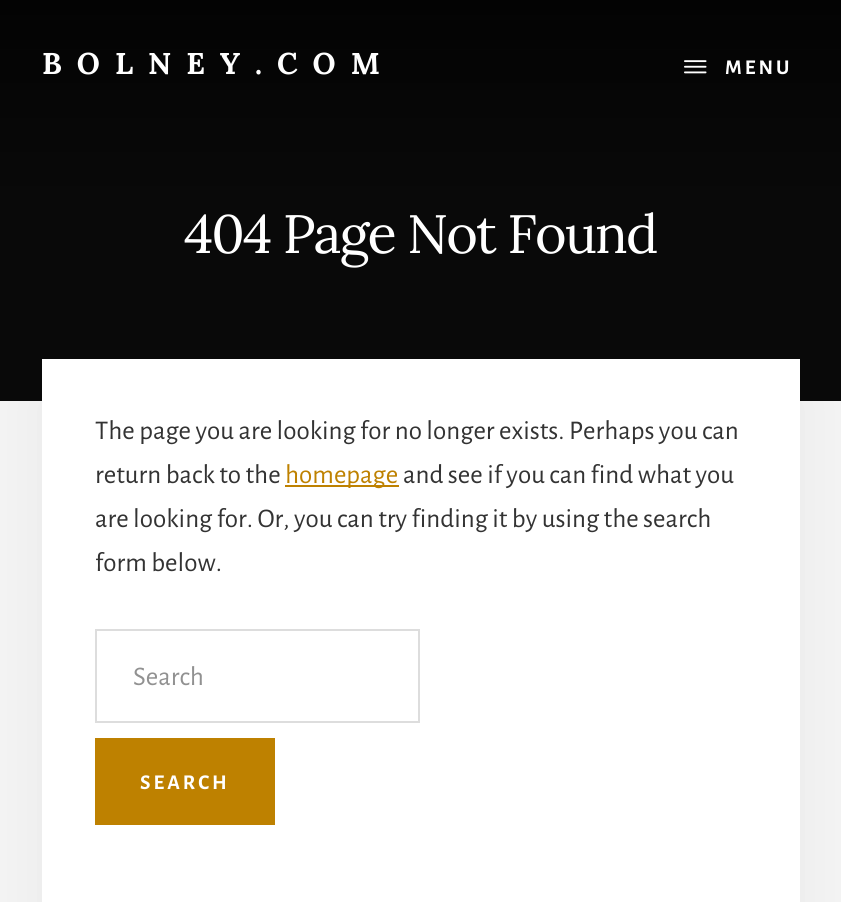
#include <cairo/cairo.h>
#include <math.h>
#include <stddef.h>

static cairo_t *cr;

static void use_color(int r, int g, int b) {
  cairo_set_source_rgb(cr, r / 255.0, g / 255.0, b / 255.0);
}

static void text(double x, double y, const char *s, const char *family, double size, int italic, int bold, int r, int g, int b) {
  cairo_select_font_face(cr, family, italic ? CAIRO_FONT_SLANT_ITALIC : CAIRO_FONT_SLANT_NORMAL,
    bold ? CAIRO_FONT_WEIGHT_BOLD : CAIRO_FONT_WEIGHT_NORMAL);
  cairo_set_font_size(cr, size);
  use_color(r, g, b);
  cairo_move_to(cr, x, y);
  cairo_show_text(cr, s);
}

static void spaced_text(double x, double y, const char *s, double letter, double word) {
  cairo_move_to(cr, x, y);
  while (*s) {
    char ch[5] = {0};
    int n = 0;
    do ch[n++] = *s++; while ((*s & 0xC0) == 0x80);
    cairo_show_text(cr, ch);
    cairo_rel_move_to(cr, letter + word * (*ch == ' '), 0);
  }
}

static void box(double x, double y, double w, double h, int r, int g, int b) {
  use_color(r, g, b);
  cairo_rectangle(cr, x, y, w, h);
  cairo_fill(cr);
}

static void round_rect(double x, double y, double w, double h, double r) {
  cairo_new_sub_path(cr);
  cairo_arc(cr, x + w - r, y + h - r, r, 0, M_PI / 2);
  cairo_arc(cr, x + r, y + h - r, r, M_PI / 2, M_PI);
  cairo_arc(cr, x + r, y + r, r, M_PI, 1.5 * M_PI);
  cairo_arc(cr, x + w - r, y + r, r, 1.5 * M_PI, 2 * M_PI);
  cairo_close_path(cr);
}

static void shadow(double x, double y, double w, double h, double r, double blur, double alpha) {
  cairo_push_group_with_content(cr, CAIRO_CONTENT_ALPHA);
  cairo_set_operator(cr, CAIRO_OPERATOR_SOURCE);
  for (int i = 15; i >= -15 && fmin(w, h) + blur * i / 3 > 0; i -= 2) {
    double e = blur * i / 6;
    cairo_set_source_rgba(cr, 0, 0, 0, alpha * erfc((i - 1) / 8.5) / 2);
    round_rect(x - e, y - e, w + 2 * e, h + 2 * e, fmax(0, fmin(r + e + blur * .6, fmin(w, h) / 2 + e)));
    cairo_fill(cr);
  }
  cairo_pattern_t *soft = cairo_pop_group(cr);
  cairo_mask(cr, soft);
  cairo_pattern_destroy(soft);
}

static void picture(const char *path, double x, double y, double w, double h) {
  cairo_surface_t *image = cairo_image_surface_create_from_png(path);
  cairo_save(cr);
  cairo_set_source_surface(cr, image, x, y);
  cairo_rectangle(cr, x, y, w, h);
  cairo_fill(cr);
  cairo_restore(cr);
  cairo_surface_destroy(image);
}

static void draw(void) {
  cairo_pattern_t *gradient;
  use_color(244, 244, 244);
  cairo_paint(cr);
  gradient = cairo_pattern_create_linear(421, 401, 421, 0);
  cairo_pattern_add_color_stop_rgba(gradient, 0.5, 0.035, 0.035, 0.035, 1);
  cairo_pattern_add_color_stop_rgba(gradient, 1, 0.012, 0.012, 0.012, 1);
  cairo_set_source(cr, gradient);
  cairo_pattern_destroy(gradient);
  cairo_rectangle(cr, 0, 0, 841, 401);
  cairo_fill(cr);
  picture("img_01.png", 684, 60, 23, 14);
  use_color(0, 0, 0);
  shadow(42, 396, 758, 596, 0, 30, 0.05);
  box(42, 359, 758, 543, 255, 255, 255);
  box(285, 485, 114, 2, 190, 129, 0);
  cairo_rectangle(cr, 96, 630, 323, 92);
  use_color(221, 221, 221);
  cairo_stroke(cr);
  box(95, 738, 180, 87, 190, 129, 0);
  cairo_select_font_face(cr, "Lora", CAIRO_FONT_SLANT_NORMAL, CAIRO_FONT_WEIGHT_BOLD);
  cairo_set_font_size(cr, 30);
  use_color(255, 255, 255);
  spaced_text(42, 74, "BOLNEY.COM", 15, 0);
  cairo_select_font_face(cr, "Alegreya Sans", CAIRO_FONT_SLANT_NORMAL, CAIRO_FONT_WEIGHT_BOLD);
  cairo_set_font_size(cr, 21);
  spaced_text(725, 74, "MENU", 3, 0);
  cairo_select_font_face(cr, "Lora", CAIRO_FONT_SLANT_NORMAL, CAIRO_FONT_WEIGHT_NORMAL);
  cairo_set_font_size(cr, 54);
  spaced_text(184, 253, "404 Page Not Found", -1.9, 0);
  text(95, 439, "The page you are looking for no longer exists. Perhaps you can", "Alegreya Sans", 27, 0, 0, 51, 51, 51);
  text(95, 483, "return back to the", "Alegreya Sans", 27, 0, 0, 51, 51, 51);
  text(285, 483, "homepage", "Alegreya Sans", 27, 0, 0, 190, 129, 0);
  text(403, 483, "and see if you can find what you", "Alegreya Sans", 27, 0, 0, 51, 51, 51);
  text(95, 527, "are looking for. Or, you can try finding it by using the search", "Alegreya Sans", 27, 0, 0, 51, 51, 51);
  text(95, 571, "form below.", "Alegreya Sans", 27, 0, 0, 51, 51, 51);
  text(133, 685, "Search", "Alegreya Sans", 27, 0, 0, 145, 145, 145);
  cairo_select_font_face(cr, "Alegreya Sans", CAIRO_FONT_SLANT_NORMAL, CAIRO_FONT_WEIGHT_BOLD);
  cairo_set_font_size(cr, 21);
  use_color(255, 255, 255);
  spaced_text(140, 789, "SEARCH", 3, 0);
}

int main(void) {
  cairo_surface_t *surface = cairo_image_surface_create(CAIRO_FORMAT_RGB24, 841, 902);
  cr = cairo_create(surface);
  cairo_font_options_t *options = cairo_font_options_create();
  cairo_font_options_set_hint_metrics(options, CAIRO_HINT_METRICS_OFF);
  cairo_font_options_set_hint_style(options, CAIRO_HINT_STYLE_NONE);
  cairo_set_font_options(cr, options);
  cairo_set_miter_limit(cr, 4);
  draw();
  cairo_surface_write_to_png(surface, "out.png");
  cairo_font_options_destroy(options);
  cairo_destroy(cr);
  cairo_surface_destroy(surface);
  return 0;
}
